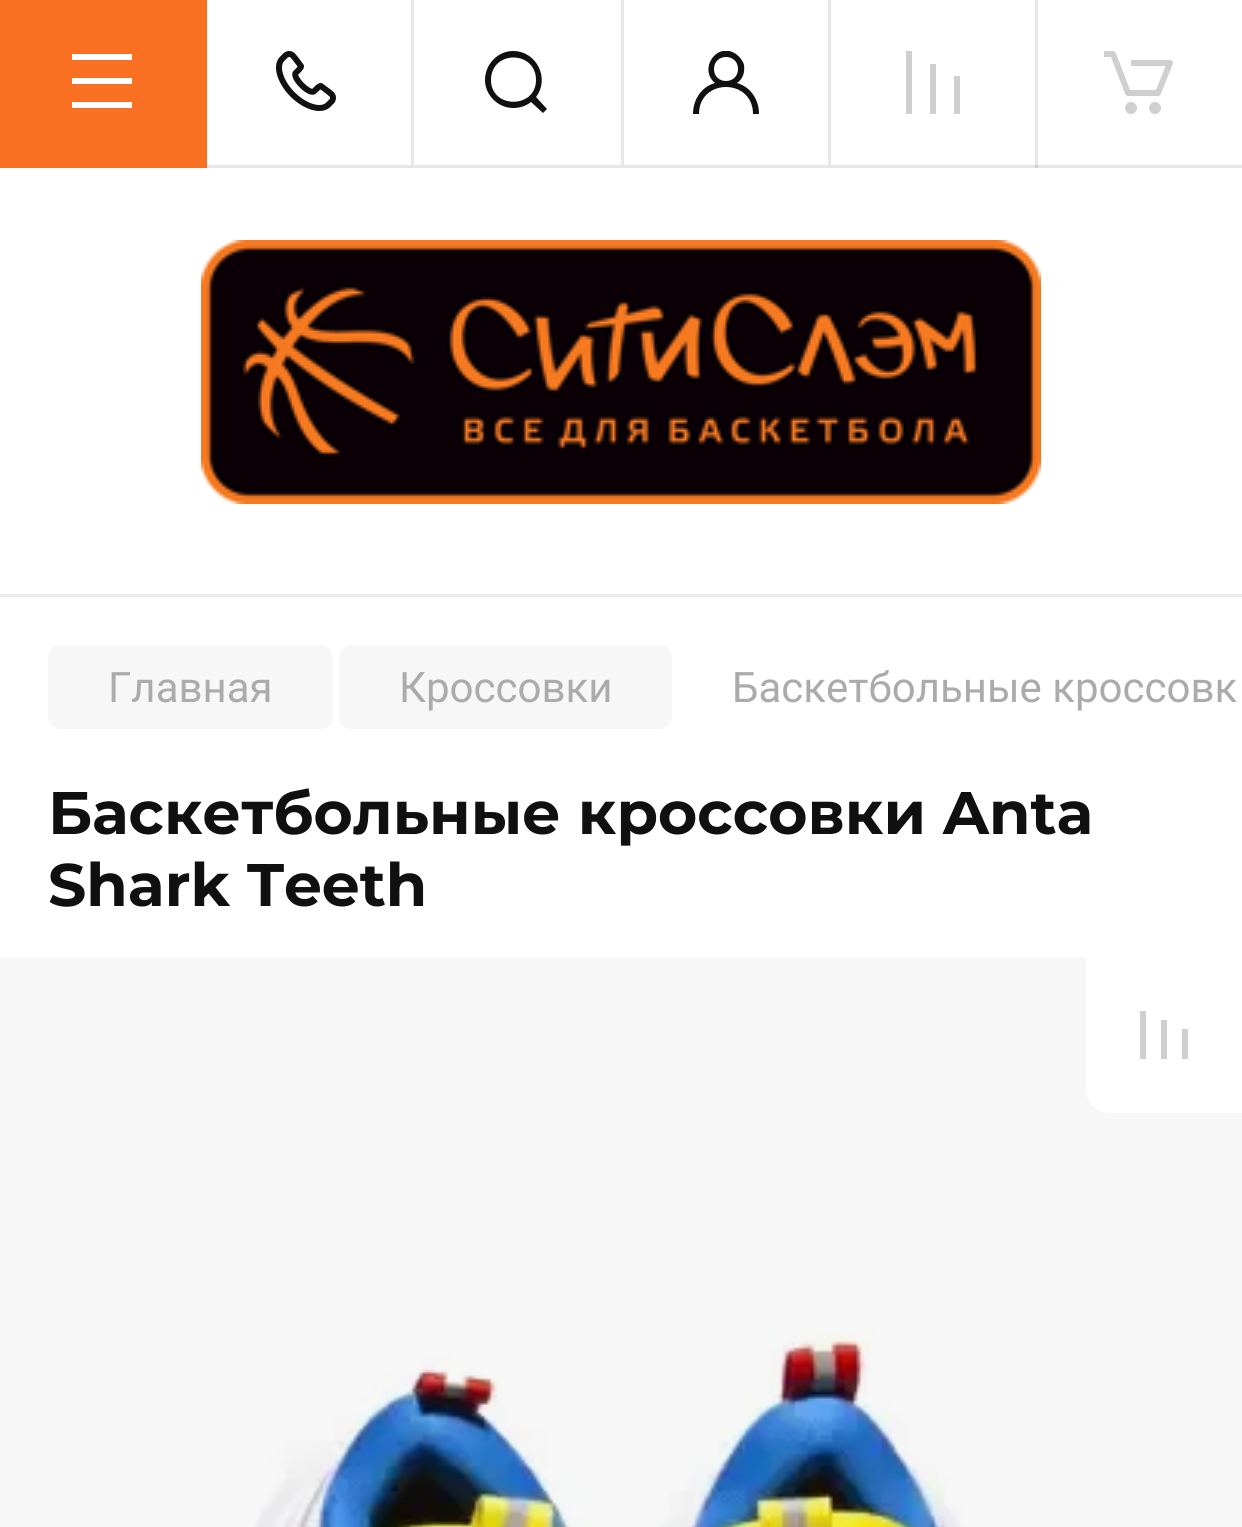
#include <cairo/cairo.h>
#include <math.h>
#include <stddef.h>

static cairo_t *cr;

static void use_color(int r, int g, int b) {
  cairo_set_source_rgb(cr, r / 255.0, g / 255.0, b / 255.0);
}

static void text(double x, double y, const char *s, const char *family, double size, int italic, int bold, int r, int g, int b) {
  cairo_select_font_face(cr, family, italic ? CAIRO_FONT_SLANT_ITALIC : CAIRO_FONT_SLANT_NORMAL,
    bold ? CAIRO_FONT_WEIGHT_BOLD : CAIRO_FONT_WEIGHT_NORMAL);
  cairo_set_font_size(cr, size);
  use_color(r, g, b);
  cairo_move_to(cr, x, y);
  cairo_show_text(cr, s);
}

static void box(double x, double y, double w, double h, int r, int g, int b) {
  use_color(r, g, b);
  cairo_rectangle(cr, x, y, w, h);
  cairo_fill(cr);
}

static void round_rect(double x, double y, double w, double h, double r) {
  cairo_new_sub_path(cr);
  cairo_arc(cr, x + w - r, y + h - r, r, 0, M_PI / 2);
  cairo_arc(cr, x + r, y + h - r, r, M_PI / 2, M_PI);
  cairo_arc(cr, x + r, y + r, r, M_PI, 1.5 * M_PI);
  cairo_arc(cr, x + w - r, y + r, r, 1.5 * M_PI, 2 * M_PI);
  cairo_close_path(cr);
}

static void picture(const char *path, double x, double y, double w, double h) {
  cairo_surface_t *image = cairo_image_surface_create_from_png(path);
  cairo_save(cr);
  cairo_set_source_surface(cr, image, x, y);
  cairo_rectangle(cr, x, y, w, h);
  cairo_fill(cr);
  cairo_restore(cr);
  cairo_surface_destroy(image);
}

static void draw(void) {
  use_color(255, 255, 255);
  cairo_paint(cr);
  box(0, 957, 1242, 570, 247, 247, 247);
  box(0, 0, 207, 168, 250, 112, 34);
  use_color(255, 255, 255);
  cairo_new_path(cr);
  cairo_move_to(cr, 72, 54);
  cairo_line_to(cr, 132, 54);
  cairo_line_to(cr, 132, 60);
  cairo_line_to(cr, 72, 60);
  cairo_close_path(cr);
  cairo_move_to(cr, 72, 78);
  cairo_line_to(cr, 132, 78);
  cairo_line_to(cr, 132, 84);
  cairo_line_to(cr, 72, 84);
  cairo_close_path(cr);
  cairo_move_to(cr, 132, 102);
  cairo_line_to(cr, 72, 102);
  cairo_line_to(cr, 72, 108);
  cairo_line_to(cr, 132, 108);
  cairo_close_path(cr);
  cairo_fill(cr);
  box(207, 165, 204, 3, 231, 231, 231);
  picture("img_01.png", 276, 51, 60, 60);
  cairo_new_path(cr);
  cairo_move_to(cr, 621, 168);
  cairo_line_to(cr, 411, 168);
  cairo_line_to(cr, 414, 165);
  cairo_line_to(cr, 621, 165);
  cairo_close_path(cr);
  cairo_fill(cr);
  cairo_set_source_rgba(cr, 0.063, 0.063, 0.063, 0.1);
  cairo_new_path(cr);
  cairo_move_to(cr, 411, 168);
  cairo_line_to(cr, 411, 0);
  cairo_line_to(cr, 414, 0);
  cairo_line_to(cr, 414, 165);
  cairo_close_path(cr);
  cairo_fill(cr);
  use_color(16, 16, 16);
  cairo_new_path(cr);
  cairo_move_to(cr, 513, 51);
  cairo_curve_to(cr, 498, 51, 485, 64, 485, 80);
  cairo_curve_to(cr, 485, 95, 498, 108, 513, 108);
  cairo_curve_to(cr, 520, 108, 526, 106, 531, 102);
  cairo_line_to(cr, 543, 113);
  cairo_line_to(cr, 547, 109);
  cairo_line_to(cr, 536, 97);
  cairo_curve_to(cr, 550, 79, 537, 51, 513, 51);
  cairo_close_path(cr);
  cairo_move_to(cr, 491, 80);
  cairo_curve_to(cr, 491, 50, 536, 50, 536, 80);
  cairo_curve_to(cr, 536, 109, 491, 109, 491, 80);
  cairo_close_path(cr);
  cairo_fill(cr);
  use_color(231, 231, 231);
  cairo_new_path(cr);
  cairo_move_to(cr, 828, 168);
  cairo_line_to(cr, 621, 168);
  cairo_line_to(cr, 624, 165);
  cairo_line_to(cr, 828, 165);
  cairo_close_path(cr);
  cairo_fill(cr);
  cairo_set_source_rgba(cr, 0.063, 0.063, 0.063, 0.1);
  cairo_new_path(cr);
  cairo_move_to(cr, 621, 168);
  cairo_line_to(cr, 621, 0);
  cairo_line_to(cr, 624, 0);
  cairo_line_to(cr, 624, 165);
  cairo_close_path(cr);
  cairo_fill(cr);
  cairo_save(cr);
  cairo_rectangle(cr, 693, 51, 66, 63);
  cairo_clip(cr);
  use_color(16, 16, 16);
  cairo_set_fill_rule(cr, CAIRO_FILL_RULE_EVEN_ODD);
  cairo_new_path(cr);
  cairo_move_to(cr, 714, 69);
  cairo_curve_to(cr, 714, 53, 738, 53, 738, 69);
  cairo_curve_to(cr, 738, 85, 714, 85, 714, 69);
  cairo_close_path(cr);
  cairo_move_to(cr, 737, 83);
  cairo_curve_to(cr, 743, 79, 745, 72, 744, 65);
  cairo_curve_to(cr, 743, 61, 740, 57, 736, 54);
  cairo_curve_to(cr, 717, 41, 698, 69, 715, 83);
  cairo_curve_to(cr, 701, 87, 693, 100, 693, 114);
  cairo_line_to(cr, 699, 114);
  cairo_curve_to(cr, 699, 78, 753, 78, 753, 114);
  cairo_line_to(cr, 759, 114);
  cairo_curve_to(cr, 759, 100, 751, 87, 737, 83);
  cairo_close_path(cr);
  cairo_fill(cr);
  cairo_restore(cr);
  use_color(231, 231, 231);
  cairo_new_path(cr);
  cairo_move_to(cr, 1038, 168);
  cairo_line_to(cr, 828, 168);
  cairo_line_to(cr, 831, 165);
  cairo_line_to(cr, 1038, 165);
  cairo_close_path(cr);
  cairo_fill(cr);
  cairo_set_source_rgba(cr, 0.063, 0.063, 0.063, 0.1);
  cairo_new_path(cr);
  cairo_move_to(cr, 828, 168);
  cairo_line_to(cr, 828, 0);
  cairo_line_to(cr, 831, 0);
  cairo_line_to(cr, 831, 165);
  cairo_close_path(cr);
  cairo_fill(cr);
  use_color(207, 207, 207);
  cairo_set_fill_rule(cr, CAIRO_FILL_RULE_EVEN_ODD);
  cairo_new_path(cr);
  cairo_move_to(cr, 960, 114);
  cairo_line_to(cr, 960, 76);
  cairo_line_to(cr, 954, 76);
  cairo_line_to(cr, 954, 114);
  cairo_close_path(cr);
  cairo_move_to(cr, 936, 64);
  cairo_line_to(cr, 936, 114);
  cairo_line_to(cr, 930, 114);
  cairo_line_to(cr, 930, 64);
  cairo_close_path(cr);
  cairo_move_to(cr, 912, 51);
  cairo_line_to(cr, 912, 114);
  cairo_line_to(cr, 906, 114);
  cairo_line_to(cr, 906, 51);
  cairo_close_path(cr);
  cairo_fill(cr);
  cairo_set_source_rgba(cr, 0.063, 0.063, 0.063, 0.1);
  cairo_set_fill_rule(cr, CAIRO_FILL_RULE_WINDING);
  cairo_new_path(cr);
  cairo_move_to(cr, 1242, 168);
  cairo_line_to(cr, 1035, 168);
  cairo_line_to(cr, 1038, 165);
  cairo_line_to(cr, 1242, 165);
  cairo_close_path(cr);
  cairo_fill(cr);
  cairo_new_path(cr);
  cairo_move_to(cr, 1035, 168);
  cairo_line_to(cr, 1035, 0);
  cairo_line_to(cr, 1038, 0);
  cairo_line_to(cr, 1038, 165);
  cairo_close_path(cr);
  cairo_fill(cr);
  picture("img_02.png", 1104, 51, 69, 63);
  box(0, 594, 1242, 3, 236, 236, 236);
  picture("img_03.png", 201, 240, 840, 264);
  use_color(247, 247, 247);
  round_rect(48, 645, 285, 84, 12);
  cairo_fill(cr);
  round_rect(339, 645, 333, 84, 12);
  cairo_fill(cr);
  use_color(255, 255, 255);
  cairo_new_path(cr);
  cairo_move_to(cr, 1086, 957);
  cairo_line_to(cr, 1242, 957);
  cairo_line_to(cr, 1242, 1113);
  cairo_line_to(cr, 1110, 1113);
  cairo_curve_to(cr, 1096.5, 1113, 1086, 1102.5, 1086, 1089);
  cairo_close_path(cr);
  cairo_fill(cr);
  use_color(207, 207, 207);
  cairo_new_path(cr);
  cairo_move_to(cr, 1188, 1059);
  cairo_line_to(cr, 1188, 1029);
  cairo_line_to(cr, 1182, 1029);
  cairo_line_to(cr, 1182, 1059);
  cairo_close_path(cr);
  cairo_move_to(cr, 1167, 1020);
  cairo_line_to(cr, 1167, 1059);
  cairo_line_to(cr, 1161, 1059);
  cairo_line_to(cr, 1161, 1020);
  cairo_close_path(cr);
  cairo_move_to(cr, 1146, 1011);
  cairo_line_to(cr, 1146, 1059);
  cairo_line_to(cr, 1140, 1059);
  cairo_line_to(cr, 1140, 1011);
  cairo_close_path(cr);
  cairo_fill(cr);
  picture("img_04.png", 254, 1329, 709, 198);
  text(108, 702, "Главная", "Roboto", 42, 0, 0, 171, 171, 171);
  text(399, 702, "Кроссовки", "Roboto", 42, 0, 0, 171, 171, 171);
  text(732, 702, "Баскетбольные кроссовк", "Roboto", 42, 0, 0, 171, 171, 171);
  text(48, 834, "Баскетбольные кроссовки Anta", "Montserrat", 60, 0, 1, 16, 16, 16);
  text(48, 906, "Shark Teeth", "Montserrat", 60, 0, 1, 16, 16, 16);
}

int main(void) {
  cairo_surface_t *surface = cairo_image_surface_create(CAIRO_FORMAT_RGB24, 1242, 1527);
  cr = cairo_create(surface);
  cairo_font_options_t *options = cairo_font_options_create();
  cairo_font_options_set_hint_metrics(options, CAIRO_HINT_METRICS_OFF);
  cairo_font_options_set_hint_style(options, CAIRO_HINT_STYLE_NONE);
  cairo_set_font_options(cr, options);
  cairo_set_miter_limit(cr, 4);
  draw();
  cairo_surface_write_to_png(surface, "out.png");
  cairo_font_options_destroy(options);
  cairo_destroy(cr);
  cairo_surface_destroy(surface);
  return 0;
}
